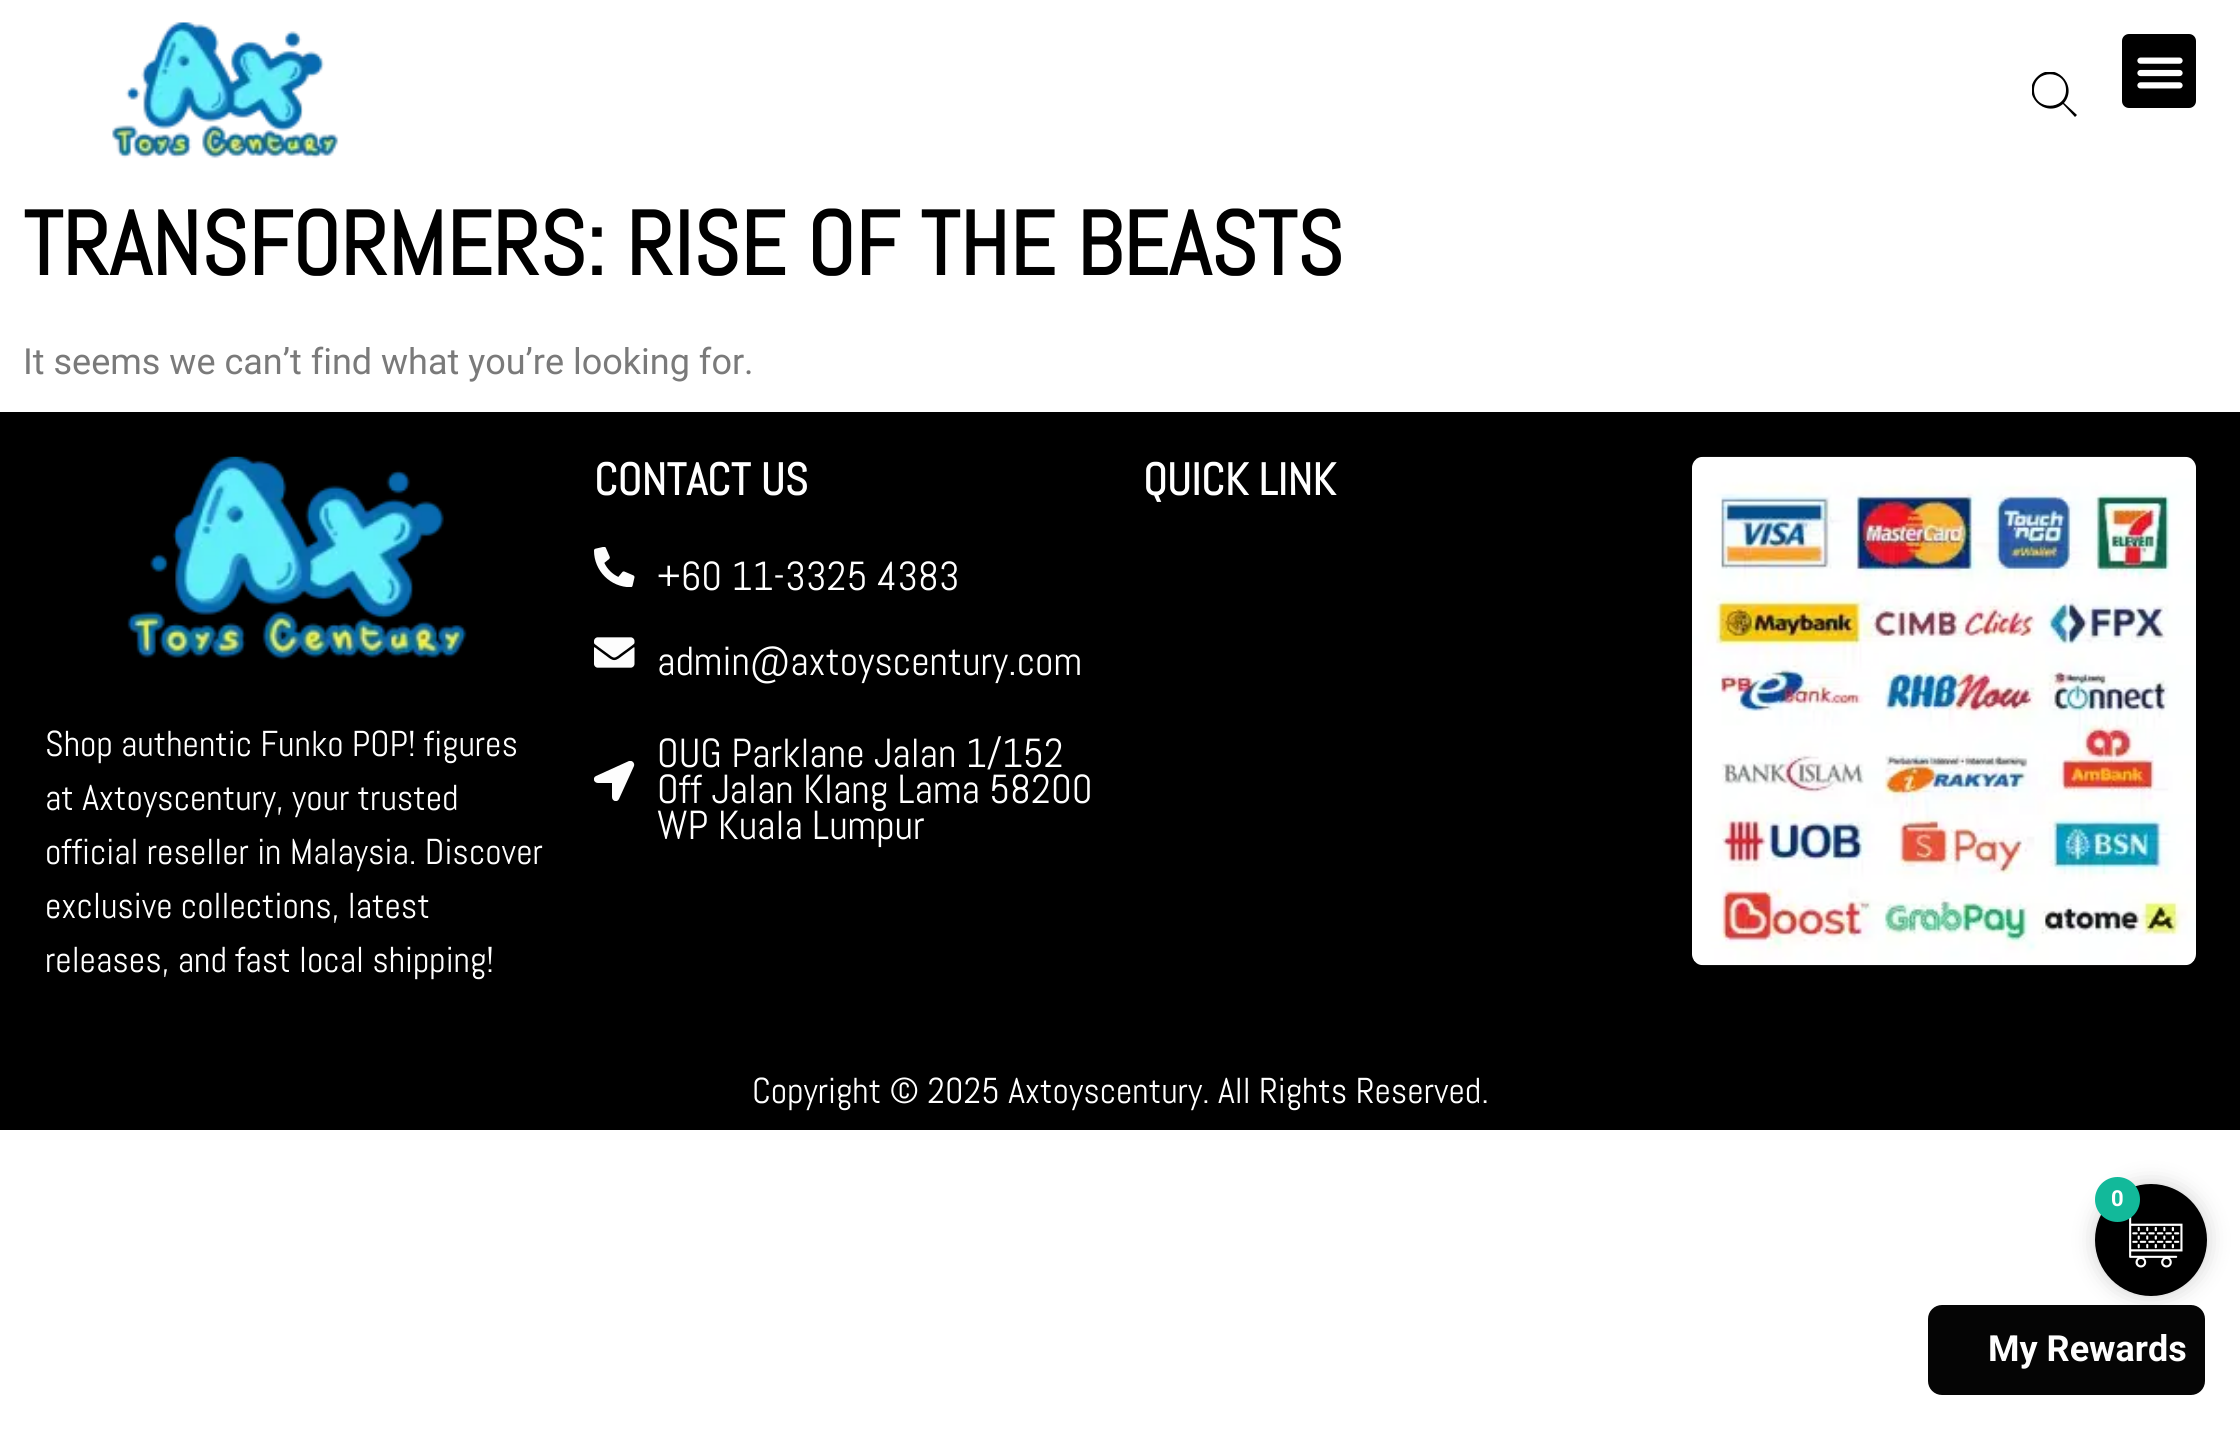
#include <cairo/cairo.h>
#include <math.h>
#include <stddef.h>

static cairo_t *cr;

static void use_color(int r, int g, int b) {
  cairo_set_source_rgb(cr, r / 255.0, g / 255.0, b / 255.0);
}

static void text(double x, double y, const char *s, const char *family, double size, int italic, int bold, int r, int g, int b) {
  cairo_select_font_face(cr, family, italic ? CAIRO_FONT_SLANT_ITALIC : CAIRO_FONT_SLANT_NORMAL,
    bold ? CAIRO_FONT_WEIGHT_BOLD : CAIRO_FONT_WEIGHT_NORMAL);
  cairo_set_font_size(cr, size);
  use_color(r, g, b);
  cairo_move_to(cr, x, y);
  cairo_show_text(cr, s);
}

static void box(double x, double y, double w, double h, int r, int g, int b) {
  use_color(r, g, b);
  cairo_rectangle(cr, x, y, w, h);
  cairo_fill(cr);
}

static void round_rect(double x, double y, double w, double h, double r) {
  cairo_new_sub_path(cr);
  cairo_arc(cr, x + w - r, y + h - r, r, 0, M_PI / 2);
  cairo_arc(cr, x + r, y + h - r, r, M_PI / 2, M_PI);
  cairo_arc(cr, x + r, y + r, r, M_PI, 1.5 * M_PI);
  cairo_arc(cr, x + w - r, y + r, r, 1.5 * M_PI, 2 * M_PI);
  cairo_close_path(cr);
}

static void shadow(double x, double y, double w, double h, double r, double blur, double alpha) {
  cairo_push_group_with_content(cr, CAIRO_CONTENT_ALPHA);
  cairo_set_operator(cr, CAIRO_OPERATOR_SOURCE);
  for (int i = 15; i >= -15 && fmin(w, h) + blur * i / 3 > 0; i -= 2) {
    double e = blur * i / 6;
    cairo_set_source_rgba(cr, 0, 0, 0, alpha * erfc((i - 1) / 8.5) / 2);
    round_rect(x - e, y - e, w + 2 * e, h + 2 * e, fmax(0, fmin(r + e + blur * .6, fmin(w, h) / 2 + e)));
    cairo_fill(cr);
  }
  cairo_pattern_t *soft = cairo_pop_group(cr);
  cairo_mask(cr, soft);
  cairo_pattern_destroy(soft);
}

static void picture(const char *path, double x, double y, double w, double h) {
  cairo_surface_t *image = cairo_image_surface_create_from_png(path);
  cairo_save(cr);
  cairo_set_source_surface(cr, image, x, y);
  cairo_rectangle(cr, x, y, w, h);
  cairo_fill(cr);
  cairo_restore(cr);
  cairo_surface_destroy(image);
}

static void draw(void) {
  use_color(255, 255, 255);
  cairo_paint(cr);
  picture("img_01.png", 112, 22, 227, 137);
  cairo_save(cr);
  cairo_rectangle(cr, 2032, 72, 45, 45);
  cairo_clip(cr);
  use_color(0, 0, 0);
  cairo_new_path(cr);
  cairo_move_to(cr, 2077, 115);
  cairo_line_to(cr, 2064, 103);
  cairo_curve_to(cr, 2079, 85, 2054, 60, 2037, 77);
  cairo_curve_to(cr, 2020, 94, 2045, 119, 2063, 104);
  cairo_line_to(cr, 2075, 117);
  cairo_close_path(cr);
  cairo_move_to(cr, 2034, 90);
  cairo_curve_to(cr, 2034, 69, 2066, 69, 2066, 90);
  cairo_curve_to(cr, 2066, 111, 2034, 111, 2034, 90);
  cairo_close_path(cr);
  cairo_fill(cr);
  cairo_restore(cr);
  use_color(0, 0, 0);
  round_rect(2122, 34, 74, 74, 7);
  cairo_fill(cr);
  picture("img_02.png", 2137, 57, 46, 32);
  box(0, 412, 2240, 718, 0, 0, 0);
  picture("img_03.png", 594, 547, 41, 40);
  picture("img_04.png", 594, 637, 41, 31);
  cairo_save(cr);
  cairo_rectangle(cr, 594, 761, 41, 40);
  cairo_clip(cr);
  use_color(253, 253, 253);
  cairo_new_path(cr);
  cairo_move_to(cr, 629, 761);
  cairo_line_to(cr, 596, 776);
  cairo_curve_to(cr, 592, 778, 594, 783, 598, 783);
  cairo_line_to(cr, 612, 783);
  cairo_line_to(cr, 612, 797);
  cairo_curve_to(cr, 612, 801, 617, 803, 619, 799);
  cairo_line_to(cr, 634, 766);
  cairo_curve_to(cr, 635, 763, 632, 760, 629, 761);
  cairo_close_path(cr);
  cairo_fill(cr);
  cairo_restore(cr);
  picture("img_05.png", 1692, 456, 504, 510);
  picture("img_06.png", 127, 456, 340, 204);
  use_color(0, 0, 0);
  shadow(2095, 1184, 112, 112, 56, 11, 0.19);
  use_color(0, 0, 0);
  cairo_arc(cr, 2151, 1240, 56, 0, 2 * M_PI);
  cairo_fill(cr);
  picture("img_07.png", 2129, 1216, 54, 52);
  use_color(18, 185, 154);
  cairo_arc(cr, 2117.5, 1199.5, 22.5, 0, 2 * M_PI);
  cairo_fill(cr);
  use_color(5, 5, 5);
  round_rect(1928, 1305, 277, 90, 14);
  cairo_fill(cr);
  text(23, 275, "TRANSFORMERS: RISE OF THE BEASTS", "Abel", 90, 0, 1, 0, 0, 0);
  text(23, 374, "It seems we can’t find what you’re looking for.", "Roboto", 36, 0, 0, 122, 122, 122);
  text(594, 495, "CONTACT US", "Abel", 45, 0, 1, 255, 255, 255);
  text(657, 590, "+60 11-3325 4383", "Abel", 40.5, 0, 0, 255, 255, 255);
  text(657, 675, "admin@axtoyscentury.com", "Abel", 40.5, 0, 0, 255, 255, 255);
  text(657, 767, "OUG Parklane Jalan 1/152", "Abel", 40.5, 0, 0, 255, 255, 255);
  text(657, 803, "Off Jalan Klang Lama 58200", "Abel", 40.5, 0, 0, 255, 255, 255);
  text(657, 839, "WP Kuala Lumpur", "Abel", 40.5, 0, 0, 255, 255, 255);
  text(1143, 495, "QUICK LINK", "Abel", 45, 0, 1, 255, 255, 255);
  text(45, 756, "Shop authentic Funko POP! figures", "Abel", 36, 0, 0, 255, 255, 255);
  text(45, 810, "at Axtoyscentury, your trusted", "Abel", 36, 0, 0, 255, 255, 255);
  text(45, 864, "official reseller in Malaysia. Discover", "Abel", 36, 0, 0, 255, 255, 255);
  text(45, 918, "exclusive collections, latest", "Abel", 36, 0, 0, 255, 255, 255);
  text(45, 972, "releases, and fast local shipping!", "Abel", 36, 0, 0, 255, 255, 255);
  text(752, 1103, "Copyright © 2025 Axtoyscentury. All Rights Reserved.", "Abel", 36, 0, 0, 255, 255, 255);
  text(2111, 1206, "0", "Roboto", 22, 0, 1, 255, 255, 255);
  text(1988, 1361, "My Rewards", "Roboto", 36, 0, 1, 255, 255, 255);
}

int main(void) {
  cairo_surface_t *surface = cairo_image_surface_create(CAIRO_FORMAT_RGB24, 2240, 1429);
  cr = cairo_create(surface);
  cairo_font_options_t *options = cairo_font_options_create();
  cairo_font_options_set_hint_metrics(options, CAIRO_HINT_METRICS_OFF);
  cairo_font_options_set_hint_style(options, CAIRO_HINT_STYLE_NONE);
  cairo_set_font_options(cr, options);
  cairo_set_miter_limit(cr, 4);
  draw();
  cairo_surface_write_to_png(surface, "out.png");
  cairo_font_options_destroy(options);
  cairo_destroy(cr);
  cairo_surface_destroy(surface);
  return 0;
}
